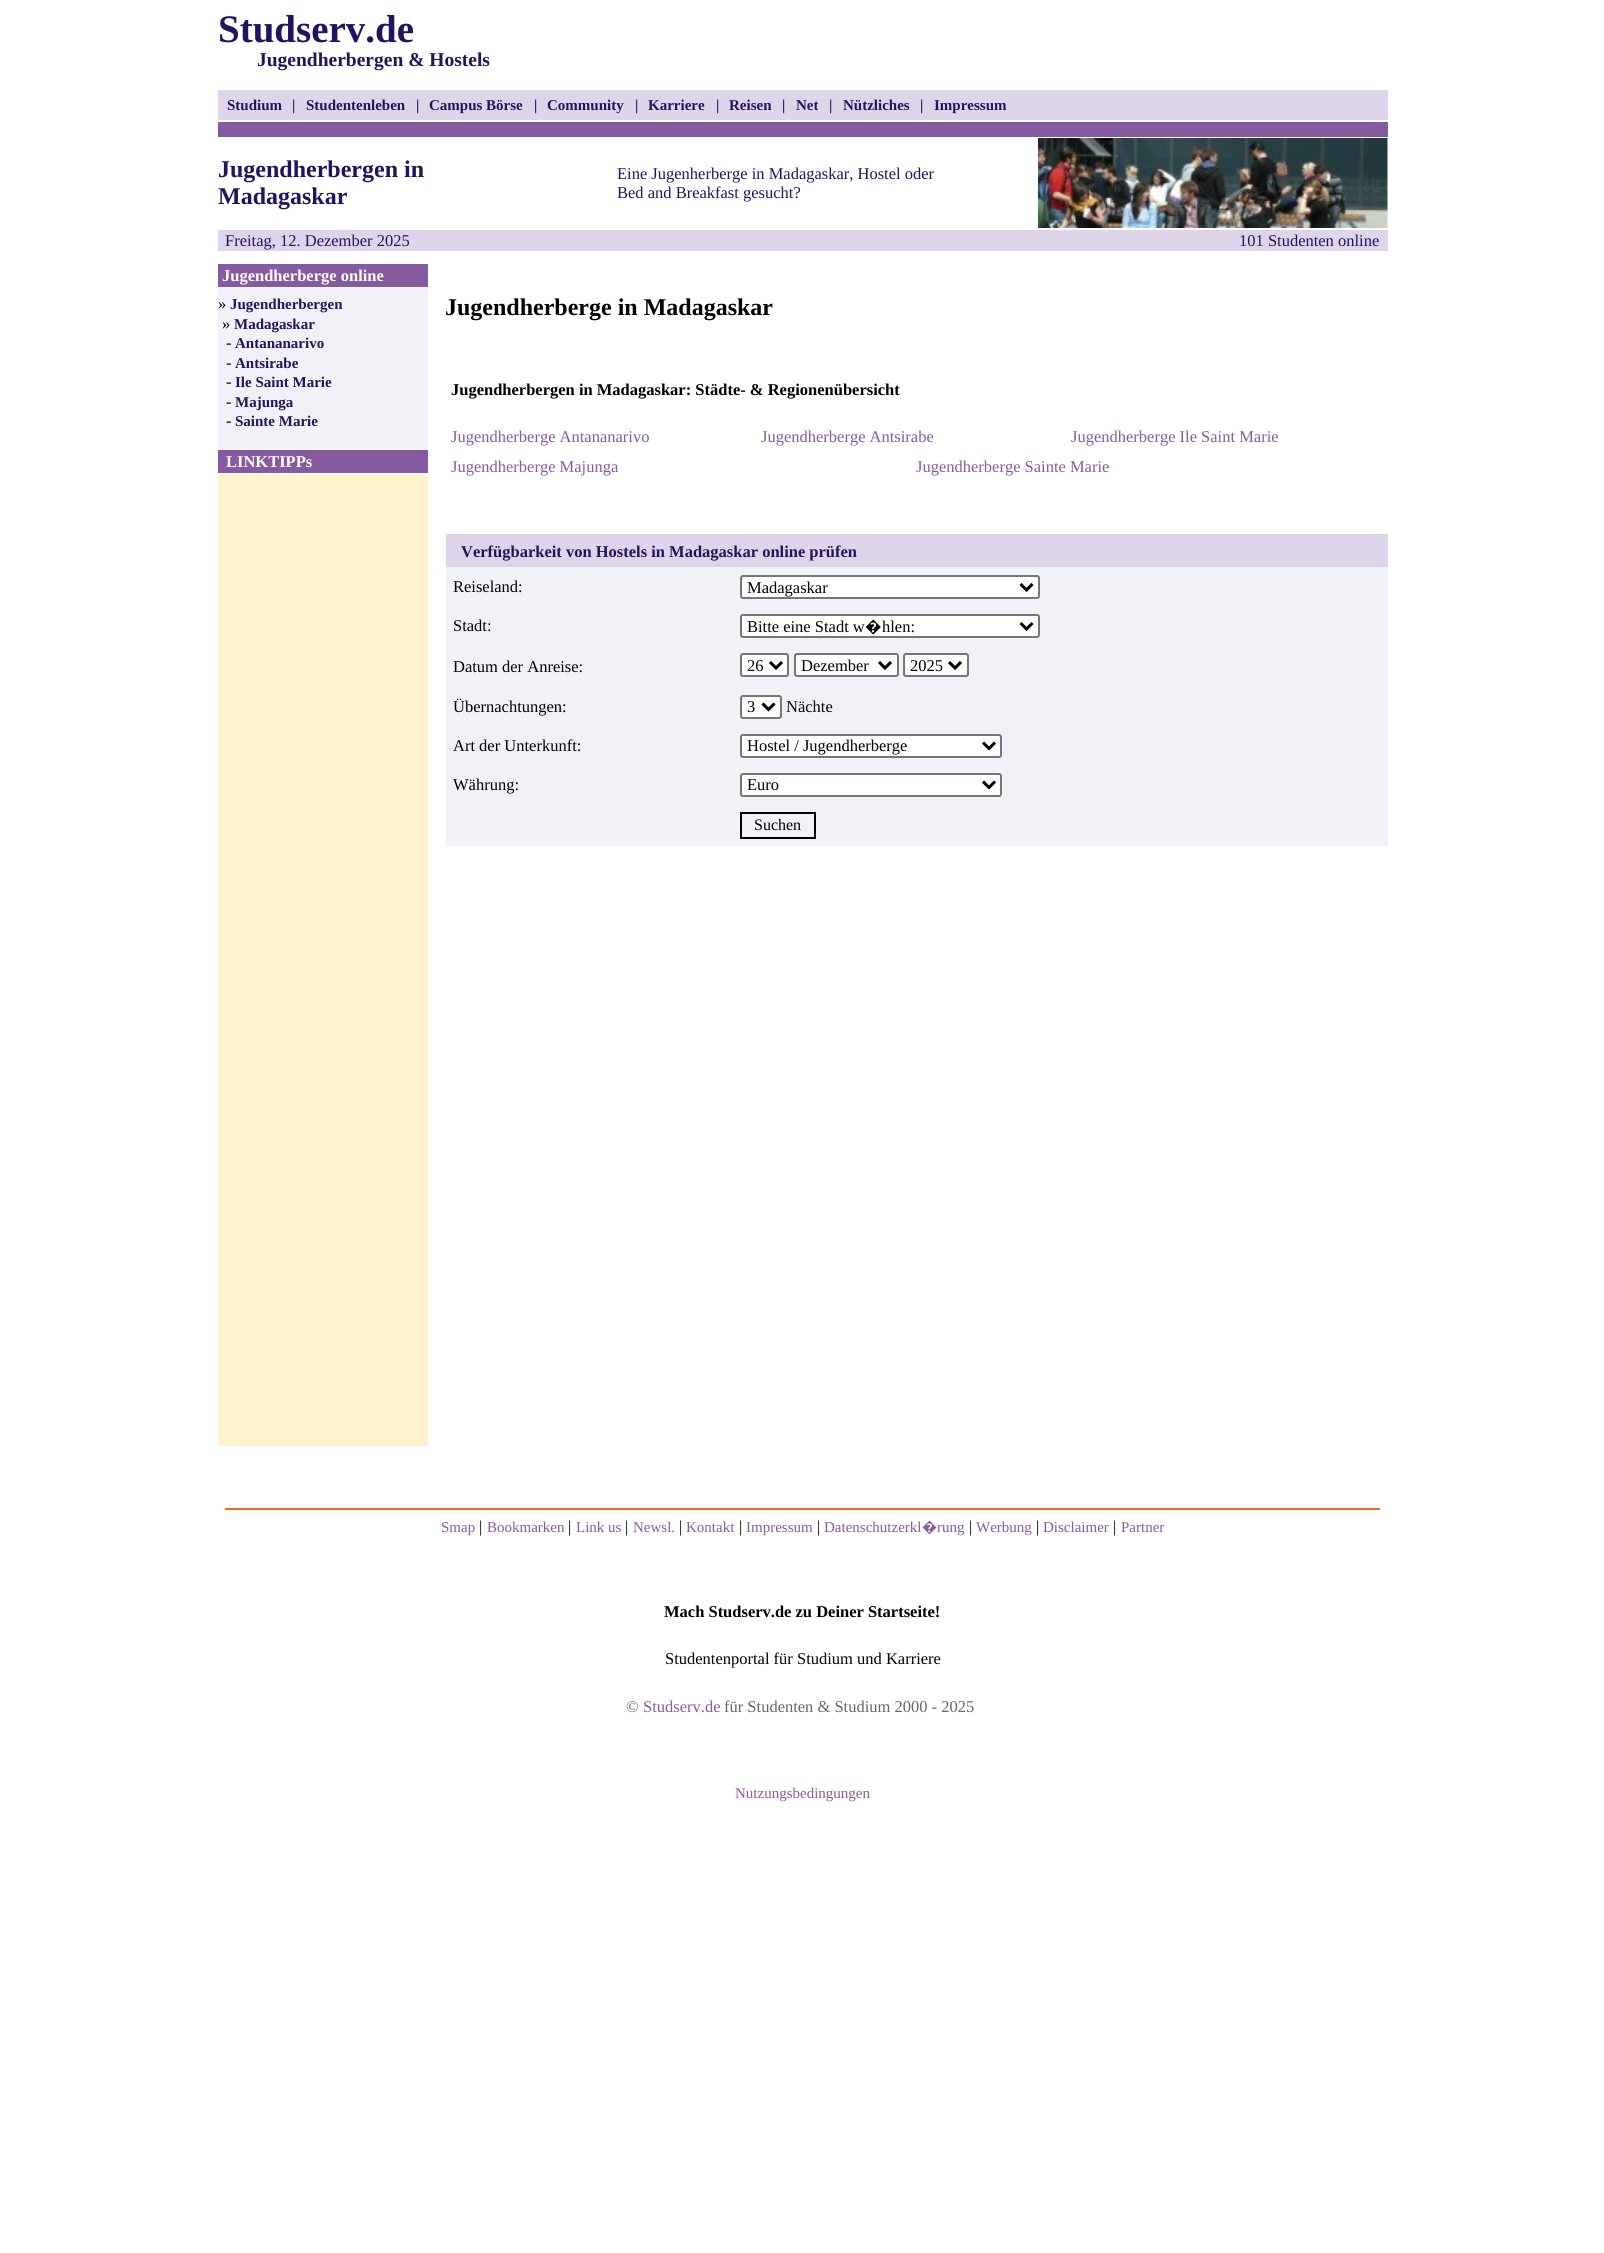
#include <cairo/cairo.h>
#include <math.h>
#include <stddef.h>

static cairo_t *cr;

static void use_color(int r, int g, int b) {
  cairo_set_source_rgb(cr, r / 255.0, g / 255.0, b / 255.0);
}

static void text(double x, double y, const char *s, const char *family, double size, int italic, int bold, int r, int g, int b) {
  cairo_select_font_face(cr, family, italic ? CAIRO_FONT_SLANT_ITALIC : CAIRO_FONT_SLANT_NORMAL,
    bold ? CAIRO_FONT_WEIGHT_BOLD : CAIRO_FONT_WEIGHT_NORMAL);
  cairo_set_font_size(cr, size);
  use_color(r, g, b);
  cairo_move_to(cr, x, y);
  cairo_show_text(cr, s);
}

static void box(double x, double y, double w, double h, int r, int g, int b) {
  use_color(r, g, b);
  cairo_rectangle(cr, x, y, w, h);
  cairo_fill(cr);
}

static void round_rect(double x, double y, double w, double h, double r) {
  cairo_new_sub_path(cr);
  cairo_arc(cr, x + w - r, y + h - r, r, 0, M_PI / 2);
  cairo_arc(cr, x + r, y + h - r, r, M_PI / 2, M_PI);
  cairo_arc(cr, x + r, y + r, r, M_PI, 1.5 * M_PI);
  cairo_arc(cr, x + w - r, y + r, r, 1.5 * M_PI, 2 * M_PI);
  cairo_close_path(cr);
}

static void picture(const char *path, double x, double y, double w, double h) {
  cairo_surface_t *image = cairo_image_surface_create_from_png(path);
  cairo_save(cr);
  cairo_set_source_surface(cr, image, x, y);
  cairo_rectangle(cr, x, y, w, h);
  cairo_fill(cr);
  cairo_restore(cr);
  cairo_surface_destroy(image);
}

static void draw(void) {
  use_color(255, 255, 255);
  cairo_paint(cr);
  box(218, 90, 1170, 30, 223, 213, 234);
  box(218, 122, 1170, 15, 133, 90, 158);
  picture("img_01.png", 1038, 138, 350, 90);
  box(218, 230, 1170, 21, 223, 213, 234);
  box(218, 264, 210, 23, 133, 90, 158);
  box(218, 288, 210, 161, 241, 241, 248);
  box(218, 450, 210, 23, 133, 90, 158);
  box(218, 474, 210, 972, 255, 243, 204);
  box(446, 534, 942, 33, 223, 213, 234);
  box(446, 567, 942, 279, 241, 241, 248);
  use_color(255, 255, 255);
  round_rect(741, 576, 298, 22, 2);
  cairo_fill_preserve(cr);
  use_color(118, 118, 118);
  cairo_stroke(cr);
  cairo_new_path(cr);
  cairo_move_to(cr, 1020.5, 584);
  cairo_line_to(cr, 1026.5, 590);
  cairo_line_to(cr, 1032.5, 584);
  use_color(0, 0, 0);
  cairo_set_line_width(cr, 3);
  cairo_stroke(cr);
  use_color(255, 255, 255);
  round_rect(741, 615, 298, 22, 2);
  cairo_fill_preserve(cr);
  use_color(118, 118, 118);
  cairo_set_line_width(cr, 2);
  cairo_stroke(cr);
  cairo_new_path(cr);
  cairo_move_to(cr, 1020.5, 623);
  cairo_line_to(cr, 1026.5, 629);
  cairo_line_to(cr, 1032.5, 623);
  use_color(0, 0, 0);
  cairo_set_line_width(cr, 3);
  cairo_stroke(cr);
  use_color(255, 255, 255);
  round_rect(741, 654, 47, 22, 2);
  cairo_fill_preserve(cr);
  use_color(118, 118, 118);
  cairo_set_line_width(cr, 2);
  cairo_stroke(cr);
  cairo_new_path(cr);
  cairo_move_to(cr, 770, 662);
  cairo_line_to(cr, 776, 668);
  cairo_line_to(cr, 782, 662);
  use_color(0, 0, 0);
  cairo_set_line_width(cr, 3);
  cairo_stroke(cr);
  use_color(255, 255, 255);
  round_rect(795, 654, 103, 22, 2);
  cairo_fill_preserve(cr);
  use_color(118, 118, 118);
  cairo_set_line_width(cr, 2);
  cairo_stroke(cr);
  cairo_new_path(cr);
  cairo_move_to(cr, 879, 662);
  cairo_line_to(cr, 885, 668);
  cairo_line_to(cr, 891, 662);
  use_color(0, 0, 0);
  cairo_set_line_width(cr, 3);
  cairo_stroke(cr);
  use_color(255, 255, 255);
  round_rect(904, 654, 64, 22, 2);
  cairo_fill_preserve(cr);
  use_color(118, 118, 118);
  cairo_set_line_width(cr, 2);
  cairo_stroke(cr);
  cairo_new_path(cr);
  cairo_move_to(cr, 949, 662);
  cairo_line_to(cr, 955, 668);
  cairo_line_to(cr, 961, 662);
  use_color(0, 0, 0);
  cairo_set_line_width(cr, 3);
  cairo_stroke(cr);
  use_color(255, 255, 255);
  round_rect(741, 696, 40, 22, 2);
  cairo_fill_preserve(cr);
  use_color(118, 118, 118);
  cairo_set_line_width(cr, 2);
  cairo_stroke(cr);
  cairo_new_path(cr);
  cairo_move_to(cr, 762.5, 703.5);
  cairo_line_to(cr, 768.5, 709.5);
  cairo_line_to(cr, 774.5, 703.5);
  use_color(0, 0, 0);
  cairo_set_line_width(cr, 3);
  cairo_stroke(cr);
  use_color(255, 255, 255);
  round_rect(741, 735, 260, 22, 2);
  cairo_fill_preserve(cr);
  use_color(118, 118, 118);
  cairo_set_line_width(cr, 2);
  cairo_stroke(cr);
  cairo_new_path(cr);
  cairo_move_to(cr, 983, 742.5);
  cairo_line_to(cr, 989, 748.5);
  cairo_line_to(cr, 995, 742.5);
  use_color(0, 0, 0);
  cairo_set_line_width(cr, 3);
  cairo_stroke(cr);
  use_color(255, 255, 255);
  round_rect(741, 774, 260, 22, 2);
  cairo_fill_preserve(cr);
  use_color(118, 118, 118);
  cairo_set_line_width(cr, 2);
  cairo_stroke(cr);
  cairo_new_path(cr);
  cairo_move_to(cr, 983, 781.5);
  cairo_line_to(cr, 989, 787.5);
  cairo_line_to(cr, 995, 781.5);
  use_color(0, 0, 0);
  cairo_set_line_width(cr, 3);
  cairo_stroke(cr);
  cairo_rectangle(cr, 741, 813, 74, 25);
  cairo_set_line_width(cr, 2);
  cairo_stroke(cr);
  box(225, 1508, 1155, 2, 240, 108, 16);
  text(218, 42, "Studserv.de", "Liberation Serif", 39, 0, 1, 32, 20, 96);
  text(257, 66, "Jugendherbergen & Hostels", "Liberation Serif", 19.5, 0, 1, 32, 20, 96);
  text(227, 110, "Studium", "Liberation Serif", 15, 0, 1, 32, 20, 96);
  text(292, 110, "|", "Liberation Serif", 15, 0, 1, 32, 20, 96);
  text(306, 110, "Studentenleben", "Liberation Serif", 15, 0, 1, 32, 20, 96);
  text(416, 110, "|", "Liberation Serif", 15, 0, 1, 32, 20, 96);
  text(429, 110, "Campus Börse", "Liberation Serif", 15, 0, 1, 32, 20, 96);
  text(534, 110, "|", "Liberation Serif", 15, 0, 1, 32, 20, 96);
  text(547, 110, "Community", "Liberation Serif", 15, 0, 1, 32, 20, 96);
  text(635, 110, "|", "Liberation Serif", 15, 0, 1, 32, 20, 96);
  text(648, 110, "Karriere", "Liberation Serif", 15, 0, 1, 32, 20, 96);
  text(716, 110, "|", "Liberation Serif", 15, 0, 1, 32, 20, 96);
  text(729, 110, "Reisen", "Liberation Serif", 15, 0, 1, 32, 20, 96);
  text(782, 110, "|", "Liberation Serif", 15, 0, 1, 32, 20, 96);
  text(796, 110, "Net", "Liberation Serif", 15, 0, 1, 32, 20, 96);
  text(829, 110, "|", "Liberation Serif", 15, 0, 1, 32, 20, 96);
  text(843, 110, "Nützliches", "Liberation Serif", 15, 0, 1, 32, 20, 96);
  text(920, 110, "|", "Liberation Serif", 15, 0, 1, 32, 20, 96);
  text(934, 110, "Impressum", "Liberation Serif", 15, 0, 1, 32, 20, 96);
  text(218, 177, "Jugendherbergen in", "Liberation Serif", 24, 0, 1, 32, 20, 96);
  text(218, 204, "Madagaskar", "Liberation Serif", 24, 0, 1, 32, 20, 96);
  text(617, 179, "Eine Jugenherberge in Madagaskar, Hostel oder", "Liberation Serif", 16.5, 0, 0, 32, 20, 96);
  text(617, 198, "Bed and Breakfast gesucht?", "Liberation Serif", 16.5, 0, 0, 32, 20, 96);
  text(225, 246, "Freitag, 12. Dezember 2025", "Liberation Serif", 16.5, 0, 0, 32, 20, 96);
  text(1239, 246, "101 Studenten online", "Liberation Serif", 16.5, 0, 0, 32, 20, 96);
  text(222, 281, "Jugendherberge online", "Liberation Serif", 16.5, 0, 1, 255, 255, 255);
  text(218, 309, "»", "Liberation Serif", 16.5, 0, 0, 0, 0, 0);
  text(230, 309, "Jugendherbergen", "Liberation Serif", 15, 0, 1, 32, 20, 96);
  text(222, 329, "»", "Liberation Serif", 16.5, 0, 0, 0, 0, 0);
  text(234, 329, "Madagaskar", "Liberation Serif", 15, 0, 1, 32, 20, 96);
  text(226, 348, "-", "Liberation Serif", 16.5, 0, 0, 0, 0, 0);
  text(235, 348, "Antananarivo", "Liberation Serif", 15, 0, 1, 32, 20, 96);
  text(226, 368, "-", "Liberation Serif", 16.5, 0, 0, 0, 0, 0);
  text(235, 368, "Antsirabe", "Liberation Serif", 15, 0, 1, 32, 20, 96);
  text(226, 387, "-", "Liberation Serif", 16.5, 0, 0, 0, 0, 0);
  text(235, 387, "Ile Saint Marie", "Liberation Serif", 15, 0, 1, 32, 20, 96);
  text(226, 407, "-", "Liberation Serif", 16.5, 0, 0, 0, 0, 0);
  text(235, 407, "Majunga", "Liberation Serif", 15, 0, 1, 32, 20, 96);
  text(226, 426, "-", "Liberation Serif", 16.5, 0, 0, 0, 0, 0);
  text(235, 426, "Sainte Marie", "Liberation Serif", 15, 0, 1, 32, 20, 96);
  text(226, 467, "LINKTIPPs", "Liberation Serif", 16.5, 0, 1, 255, 255, 255);
  text(445, 315, "Jugendherberge in Madagaskar", "Liberation Serif", 24, 0, 1, 0, 0, 0);
  text(451, 395, "Jugendherbergen in Madagaskar: Städte- & Regionenübersicht", "Liberation Serif", 16.5, 0, 1, 0, 0, 0);
  text(451, 442, "Jugendherberge Antananarivo", "Liberation Serif", 16.5, 0, 0, 133, 90, 158);
  text(761, 442, "Jugendherberge Antsirabe", "Liberation Serif", 16.5, 0, 0, 133, 90, 158);
  text(1071, 442, "Jugendherberge Ile Saint Marie", "Liberation Serif", 16.5, 0, 0, 133, 90, 158);
  text(451, 472, "Jugendherberge Majunga", "Liberation Serif", 16.5, 0, 0, 133, 90, 158);
  text(916, 472, "Jugendherberge Sainte Marie", "Liberation Serif", 16.5, 0, 0, 133, 90, 158);
  text(461, 557, "Verfügbarkeit von Hostels in Madagaskar online prüfen", "Liberation Serif", 16.5, 0, 1, 32, 20, 96);
  text(453, 592, "Reiseland:", "Liberation Serif", 16.5, 0, 0, 0, 0, 0);
  text(747, 593, "Madagaskar", "Liberation Serif", 16.5, 0, 0, 0, 0, 0);
  text(453, 631, "Stadt:", "Liberation Serif", 16.5, 0, 0, 0, 0, 0);
  text(747, 632, "Bitte eine Stadt w", "Liberation Serif", 16.5, 0, 0, 0, 0, 0);
  text(865, 632, "�", "Noto Sans", 16.5, 0, 0, 0, 0, 0);
  text(882, 632, "hlen:", "Liberation Serif", 16.5, 0, 0, 0, 0, 0);
  text(453, 672, "Datum der Anreise:", "Liberation Serif", 16.5, 0, 0, 0, 0, 0);
  text(747, 671, "26", "Liberation Serif", 16.5, 0, 0, 0, 0, 0);
  text(801, 671, "Dezember", "Liberation Serif", 16.5, 0, 0, 0, 0, 0);
  text(910, 671, "2025", "Liberation Serif", 16.5, 0, 0, 0, 0, 0);
  text(453, 712, "Übernachtungen:", "Liberation Serif", 16.5, 0, 0, 0, 0, 0);
  text(747, 712, "3", "Liberation Serif", 16.5, 0, 0, 0, 0, 0);
  text(786, 712, "Nächte", "Liberation Serif", 16.5, 0, 0, 0, 0, 0);
  text(453, 751, "Art der Unterkunft:", "Liberation Serif", 16.5, 0, 0, 0, 0, 0);
  text(747, 751, "Hostel / Jugendherberge", "Liberation Serif", 16.5, 0, 0, 0, 0, 0);
  text(453, 790, "Währung:", "Liberation Serif", 16.5, 0, 0, 0, 0, 0);
  text(747, 790, "Euro", "Liberation Serif", 16.5, 0, 0, 0, 0, 0);
  text(754, 830, "Suchen", "Liberation Serif", 16, 0, 0, 0, 0, 0);
  text(441, 1532, "Smap", "Liberation Serif", 15, 0, 0, 133, 90, 158);
  text(479, 1532, "|", "Liberation Serif", 16.5, 0, 0, 0, 0, 0);
  text(487, 1532, "Bookmarken", "Liberation Serif", 15, 0, 0, 133, 90, 158);
  text(568, 1532, "|", "Liberation Serif", 16.5, 0, 0, 0, 0, 0);
  text(576, 1532, "Link us", "Liberation Serif", 15, 0, 0, 133, 90, 158);
  text(625, 1532, "|", "Liberation Serif", 16.5, 0, 0, 0, 0, 0);
  text(633, 1532, "Newsl.", "Liberation Serif", 15, 0, 0, 133, 90, 158);
  text(679, 1532, "|", "Liberation Serif", 16.5, 0, 0, 0, 0, 0);
  text(686, 1532, "Kontakt", "Liberation Serif", 15, 0, 0, 133, 90, 158);
  text(739, 1532, "|", "Liberation Serif", 16.5, 0, 0, 0, 0, 0);
  text(746, 1532, "Impressum", "Liberation Serif", 15, 0, 0, 133, 90, 158);
  text(817, 1532, "|", "Liberation Serif", 16.5, 0, 0, 0, 0, 0);
  text(824, 1532, "Datenschutzerkl", "Liberation Serif", 15, 0, 0, 133, 90, 158);
  text(922, 1532, "�", "Noto Sans", 15, 0, 0, 133, 90, 158);
  text(937, 1532, "rung", "Liberation Serif", 15, 0, 0, 133, 90, 158);
  text(969, 1532, "|", "Liberation Serif", 16.5, 0, 0, 0, 0, 0);
  text(976, 1532, "Werbung", "Liberation Serif", 15, 0, 0, 133, 90, 158);
  text(1036, 1532, "|", "Liberation Serif", 16.5, 0, 0, 0, 0, 0);
  text(1043, 1532, "Disclaimer", "Liberation Serif", 15, 0, 0, 133, 90, 158);
  text(1113, 1532, "|", "Liberation Serif", 16.5, 0, 0, 0, 0, 0);
  text(1121, 1532, "Partner", "Liberation Serif", 15, 0, 0, 133, 90, 158);
  text(664, 1617, "Mach Studserv.de zu Deiner Startseite!", "Liberation Serif", 16.5, 0, 1, 0, 0, 0);
  text(665, 1664, "Studentenportal für Studium und Karriere", "Liberation Serif", 16.5, 0, 0, 0, 0, 0);
  text(626, 1712, "©", "Liberation Serif", 16.5, 0, 0, 102, 102, 102);
  text(643, 1712, "Studserv.de", "Liberation Serif", 16.5, 0, 0, 133, 90, 158);
  text(724, 1712, "für Studenten & Studium 2000 - 2025", "Liberation Serif", 16.5, 0, 0, 102, 102, 102);
  text(735, 1798, "Nutzungsbedingungen", "Liberation Serif", 15, 0, 0, 133, 90, 158);
}

int main(void) {
  cairo_surface_t *surface = cairo_image_surface_create(CAIRO_FORMAT_RGB24, 1604, 2253);
  cr = cairo_create(surface);
  cairo_font_options_t *options = cairo_font_options_create();
  cairo_font_options_set_hint_metrics(options, CAIRO_HINT_METRICS_OFF);
  cairo_font_options_set_hint_style(options, CAIRO_HINT_STYLE_NONE);
  cairo_set_font_options(cr, options);
  cairo_set_miter_limit(cr, 4);
  draw();
  cairo_surface_write_to_png(surface, "out.png");
  cairo_font_options_destroy(options);
  cairo_destroy(cr);
  cairo_surface_destroy(surface);
  return 0;
}
